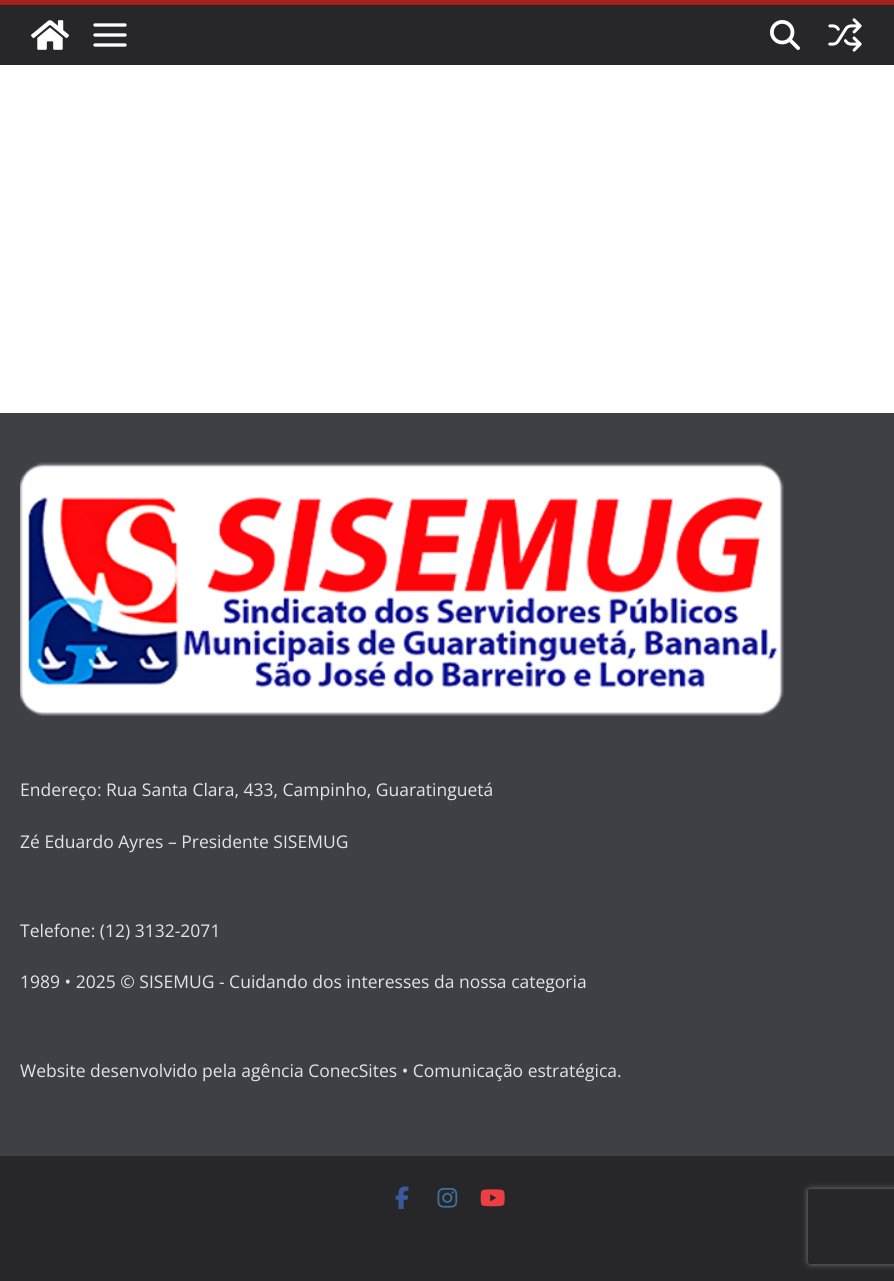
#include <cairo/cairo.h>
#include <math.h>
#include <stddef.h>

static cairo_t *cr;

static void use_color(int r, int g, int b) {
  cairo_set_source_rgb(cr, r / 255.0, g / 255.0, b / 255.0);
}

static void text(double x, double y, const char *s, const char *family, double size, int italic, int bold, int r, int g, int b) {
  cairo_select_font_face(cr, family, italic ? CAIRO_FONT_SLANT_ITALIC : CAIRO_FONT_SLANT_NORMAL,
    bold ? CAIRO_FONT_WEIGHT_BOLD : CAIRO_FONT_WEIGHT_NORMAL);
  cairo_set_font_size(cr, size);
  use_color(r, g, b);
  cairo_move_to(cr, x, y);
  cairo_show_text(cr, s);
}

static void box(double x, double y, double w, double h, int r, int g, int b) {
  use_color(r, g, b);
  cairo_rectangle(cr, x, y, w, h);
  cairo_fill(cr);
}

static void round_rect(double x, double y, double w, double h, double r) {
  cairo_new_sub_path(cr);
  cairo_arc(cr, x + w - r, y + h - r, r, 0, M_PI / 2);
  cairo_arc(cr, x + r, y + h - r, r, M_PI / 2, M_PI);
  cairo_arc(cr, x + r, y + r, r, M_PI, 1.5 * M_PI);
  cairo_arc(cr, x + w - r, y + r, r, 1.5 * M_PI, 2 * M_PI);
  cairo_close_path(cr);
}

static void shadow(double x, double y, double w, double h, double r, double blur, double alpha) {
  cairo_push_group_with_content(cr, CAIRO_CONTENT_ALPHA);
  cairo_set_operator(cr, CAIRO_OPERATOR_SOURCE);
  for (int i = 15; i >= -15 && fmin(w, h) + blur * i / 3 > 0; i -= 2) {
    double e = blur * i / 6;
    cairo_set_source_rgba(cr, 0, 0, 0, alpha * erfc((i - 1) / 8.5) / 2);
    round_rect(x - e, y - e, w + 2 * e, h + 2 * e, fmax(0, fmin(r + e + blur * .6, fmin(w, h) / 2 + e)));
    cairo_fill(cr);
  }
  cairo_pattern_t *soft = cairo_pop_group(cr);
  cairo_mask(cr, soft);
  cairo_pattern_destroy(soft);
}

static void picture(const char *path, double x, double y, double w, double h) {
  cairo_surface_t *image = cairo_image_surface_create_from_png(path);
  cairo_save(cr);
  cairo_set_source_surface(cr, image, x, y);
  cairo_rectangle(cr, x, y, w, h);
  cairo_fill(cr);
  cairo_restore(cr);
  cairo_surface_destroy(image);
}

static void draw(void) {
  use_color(255, 255, 255);
  cairo_paint(cr);
  box(0, 5, 894, 60, 39, 39, 42);
  box(0, 0, 894, 5, 163, 32, 32);
  picture("img_01.png", 31, 20, 38, 30);
  picture("img_02.png", 93, 23, 34, 24);
  picture("img_03.png", 770, 20, 30, 30);
  picture("img_04.png", 828, 18, 34, 34);
  box(0, 413, 894, 743, 63, 63, 70);
  picture("img_05.png", 20, 462, 764, 254);
  box(0, 1156, 894, 125, 39, 39, 42);
  picture("img_06.png", 395, 1186, 14, 24);
  picture("img_07.png", 437, 1188, 21, 20);
  picture("img_08.png", 480, 1189, 25, 18);
  cairo_save(cr);
  cairo_set_fill_rule(cr, CAIRO_FILL_RULE_EVEN_ODD);
  cairo_new_path(cr);
  cairo_move_to(cr, 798, 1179);
  cairo_line_to(cr, 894, 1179);
  cairo_line_to(cr, 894, 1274);
  cairo_line_to(cr, 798, 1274);
  cairo_close_path(cr);
  cairo_move_to(cr, 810.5, 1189);
  cairo_line_to(cr, 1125.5, 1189);
  cairo_curve_to(cr, 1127, 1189, 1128, 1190, 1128, 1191.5);
  cairo_line_to(cr, 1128, 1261.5);
  cairo_curve_to(cr, 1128, 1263, 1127, 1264, 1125.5, 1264);
  cairo_line_to(cr, 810.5, 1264);
  cairo_curve_to(cr, 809, 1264, 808, 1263, 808, 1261.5);
  cairo_line_to(cr, 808, 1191.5);
  cairo_curve_to(cr, 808, 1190, 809, 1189, 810.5, 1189);
  cairo_close_path(cr);
  cairo_clip(cr);
  use_color(128, 128, 128);
  shadow(808, 1189, 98, 75, 2.5, 3, 1);
  cairo_restore(cr);
  text(20, 796, "Endereço: Rua Santa Clara, 433, Campinho, Guaratinguetá", "Open Sans", 17.5, 0, 0, 228, 228, 231);
  text(20, 848, "Zé Eduardo Ayres – Presidente SISEMUG", "Open Sans", 17.5, 0, 0, 228, 228, 231);
  text(20, 937, "Telefone: (12) 3132-2071", "Open Sans", 17.5, 0, 0, 228, 228, 231);
  text(20, 988, "1989 • 2025 © SISEMUG - Cuidando dos interesses da nossa categoria", "Open Sans", 17.5, 0, 0, 228, 228, 231);
  text(20, 1077, "Website desenvolvido pela agência ConecSites • Comunicação estratégica.", "Open Sans", 17.5, 0, 0, 228, 228, 231);
}

int main(void) {
  cairo_surface_t *surface = cairo_image_surface_create(CAIRO_FORMAT_RGB24, 894, 1281);
  cr = cairo_create(surface);
  cairo_font_options_t *options = cairo_font_options_create();
  cairo_font_options_set_hint_metrics(options, CAIRO_HINT_METRICS_OFF);
  cairo_font_options_set_hint_style(options, CAIRO_HINT_STYLE_NONE);
  cairo_set_font_options(cr, options);
  cairo_set_miter_limit(cr, 4);
  draw();
  cairo_surface_write_to_png(surface, "out.png");
  cairo_font_options_destroy(options);
  cairo_destroy(cr);
  cairo_surface_destroy(surface);
  return 0;
}
